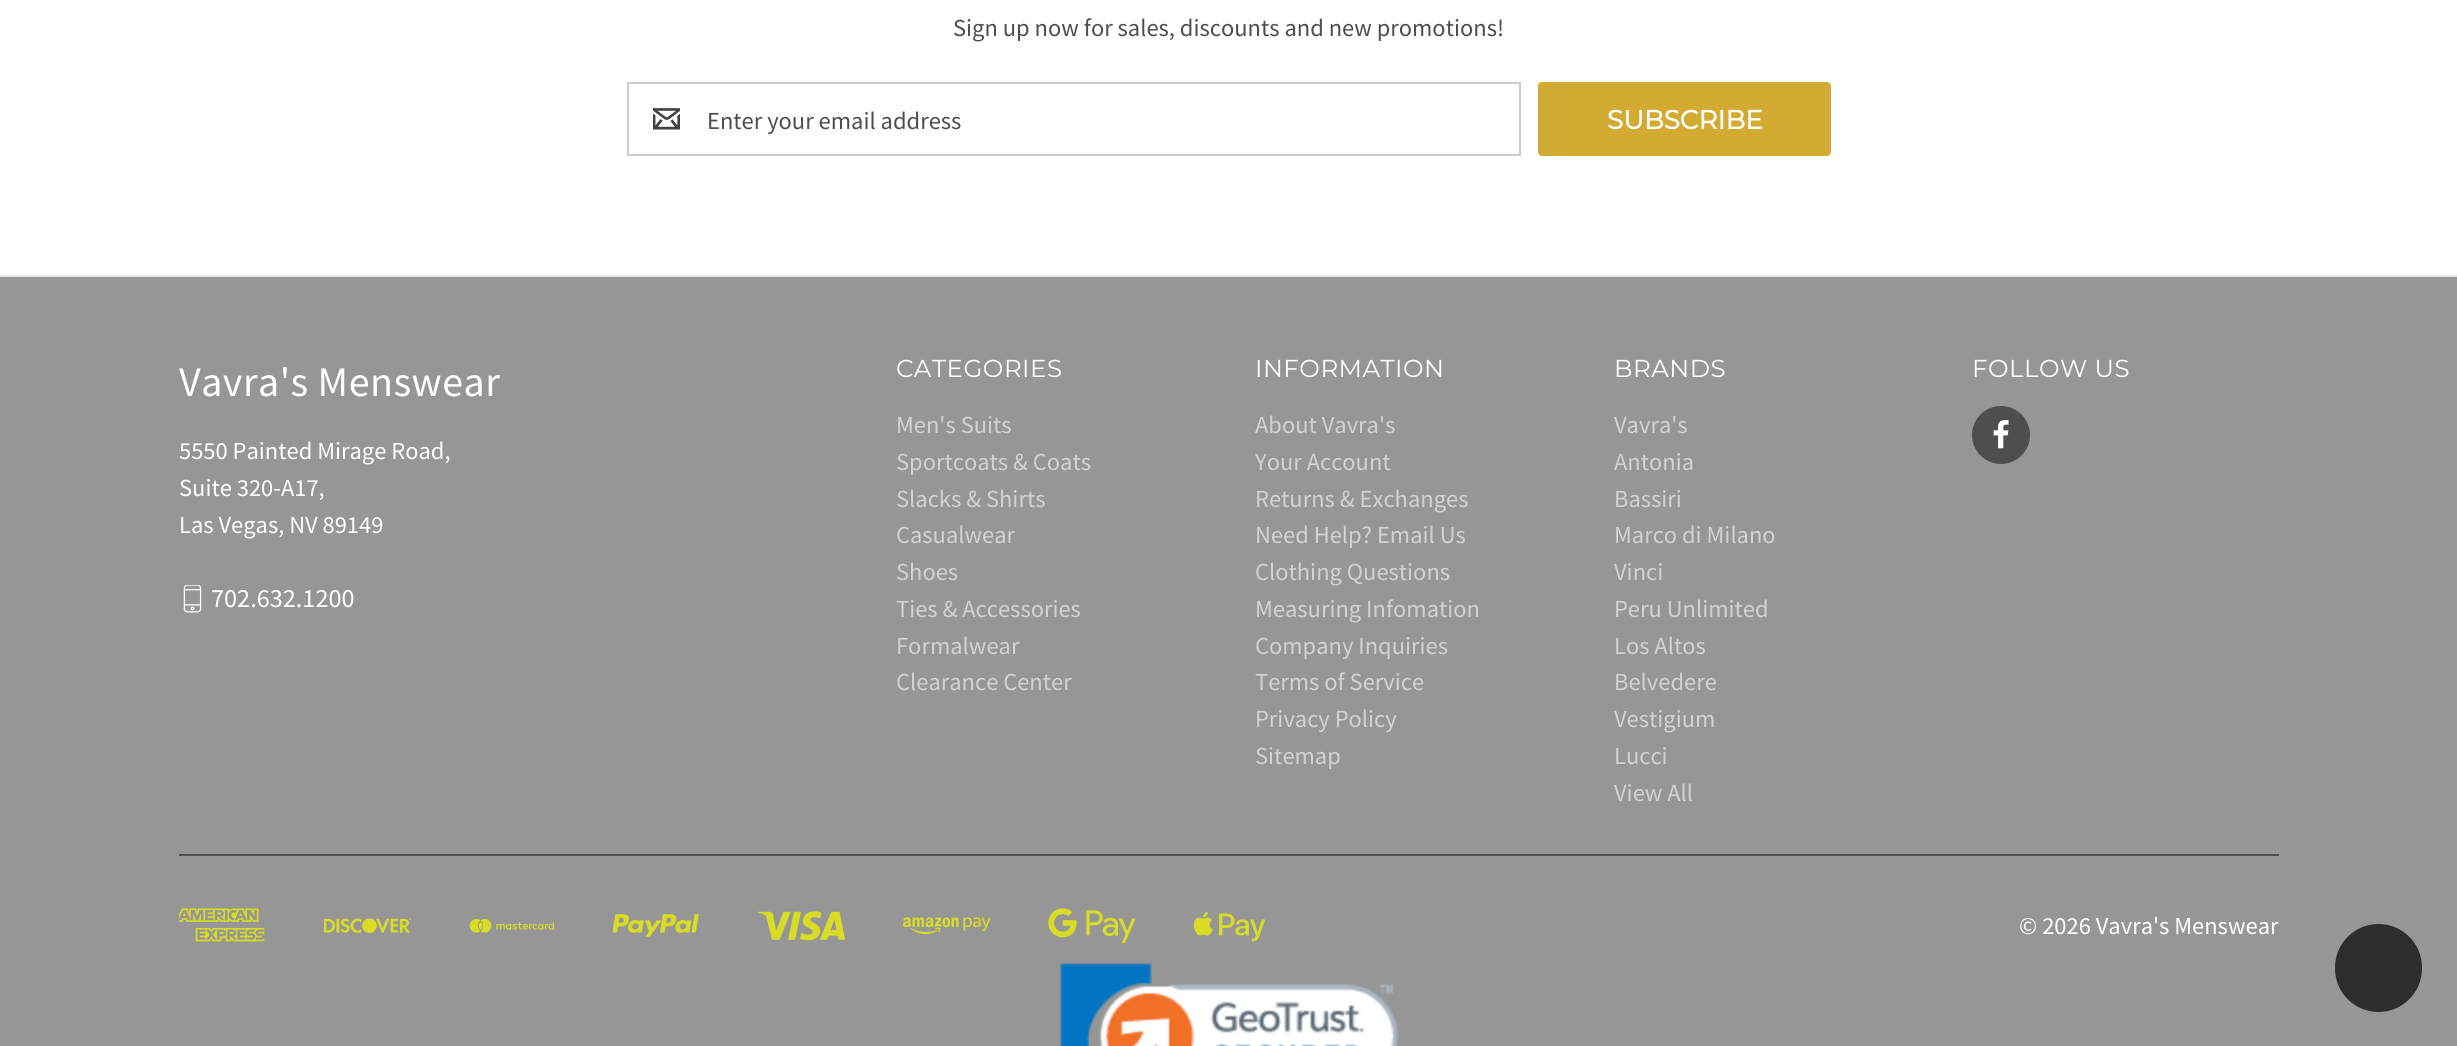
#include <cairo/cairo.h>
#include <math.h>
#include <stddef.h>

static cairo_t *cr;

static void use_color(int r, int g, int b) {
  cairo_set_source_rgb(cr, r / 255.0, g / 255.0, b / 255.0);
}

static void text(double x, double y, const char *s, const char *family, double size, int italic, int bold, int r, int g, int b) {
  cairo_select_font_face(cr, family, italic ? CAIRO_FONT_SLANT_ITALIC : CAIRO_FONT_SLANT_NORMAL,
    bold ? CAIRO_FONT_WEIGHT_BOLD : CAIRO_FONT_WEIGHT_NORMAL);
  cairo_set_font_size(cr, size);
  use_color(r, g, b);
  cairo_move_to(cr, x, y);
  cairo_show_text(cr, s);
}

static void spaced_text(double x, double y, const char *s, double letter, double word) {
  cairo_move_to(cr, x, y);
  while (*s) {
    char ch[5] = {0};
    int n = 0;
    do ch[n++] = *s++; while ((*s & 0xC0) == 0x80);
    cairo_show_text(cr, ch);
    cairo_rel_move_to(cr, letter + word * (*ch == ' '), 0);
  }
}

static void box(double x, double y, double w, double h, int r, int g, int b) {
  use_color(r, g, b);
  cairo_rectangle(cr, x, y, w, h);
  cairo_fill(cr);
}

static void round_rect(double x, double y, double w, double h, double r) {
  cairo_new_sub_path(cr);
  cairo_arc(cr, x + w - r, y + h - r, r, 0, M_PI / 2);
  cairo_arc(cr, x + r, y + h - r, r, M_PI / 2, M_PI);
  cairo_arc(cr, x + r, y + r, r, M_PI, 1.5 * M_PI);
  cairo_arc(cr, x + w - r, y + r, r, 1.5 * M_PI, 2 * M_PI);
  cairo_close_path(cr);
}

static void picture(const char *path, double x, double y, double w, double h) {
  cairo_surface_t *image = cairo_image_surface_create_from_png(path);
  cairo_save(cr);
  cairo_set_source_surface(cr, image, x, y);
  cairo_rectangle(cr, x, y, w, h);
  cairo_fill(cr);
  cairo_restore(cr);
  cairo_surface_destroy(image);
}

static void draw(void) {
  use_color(255, 255, 255);
  cairo_paint(cr);
  cairo_rectangle(cr, 628, 83, 892, 72);
  use_color(204, 204, 204);
  cairo_stroke(cr);
  picture("img_01.png", 653, 108, 27, 22);
  use_color(211, 171, 50);
  round_rect(1538, 82, 293, 74, 4);
  cairo_fill(cr);
  box(0, 277, 2457, 769, 150, 150, 150);
  box(0, 275, 2457, 2, 235, 235, 235);
  picture("img_02.png", 183, 585, 19, 28);
  use_color(78, 78, 78);
  cairo_arc(cr, 2001, 435, 29, 0, 2 * M_PI);
  cairo_fill(cr);
  picture("img_03.png", 1993, 420, 16, 29);
  box(179, 854, 2100, 2, 78, 78, 78);
  picture("img_04.png", 179, 908, 86, 34);
  picture("img_05.png", 324, 918, 87, 15);
  picture("img_06.png", 469, 918, 88, 15);
  picture("img_07.png", 613, 914, 86, 23);
  picture("img_08.png", 758, 911, 87, 30);
  picture("img_09.png", 903, 917, 88, 18);
  picture("img_10.png", 1048, 908, 88, 36);
  picture("img_11.png", 1194, 912, 71, 30);
  picture("img_12.png", 1059, 963, 340, 83);
  use_color(45, 45, 45);
  round_rect(2335, 924, 87, 88, 43.5);
  cairo_fill(cr);
  text(953, 36, "Sign up now for sales, discounts and new promotions!", "Source Sans Pro", 24.5, 0, 0, 78, 78, 78);
  text(707, 129, "Enter your email address", "Source Sans Pro", 24.5, 0, 0, 78, 78, 78);
  text(1607, 129, "SUBSCRIBE", "Montserrat", 26.25, 0, 1, 255, 255, 255);
  cairo_select_font_face(cr, "Source Sans Pro", CAIRO_FONT_SLANT_NORMAL, CAIRO_FONT_WEIGHT_NORMAL);
  cairo_set_font_size(cr, 42);
  spaced_text(179, 396, "Vavra's Menswear", 0.5, 0);
  text(179, 459, "5550 Painted Mirage Road,", "Source Sans Pro", 24.5, 0, 0, 255, 255, 255);
  text(179, 496, "Suite 320-A17,", "Source Sans Pro", 24.5, 0, 0, 255, 255, 255);
  text(179, 533, "Las Vegas, NV 89149", "Source Sans Pro", 24.5, 0, 0, 255, 255, 255);
  text(211, 607, "702.632.1200", "Source Sans Pro", 26.25, 0, 0, 255, 255, 255);
  cairo_select_font_face(cr, "Montserrat Thin", CAIRO_FONT_SLANT_NORMAL, CAIRO_FONT_WEIGHT_NORMAL);
  cairo_set_font_size(cr, 24.5);
  spaced_text(896, 377, "CATEGORIES", 0.5, 0);
  text(896, 433, "Men's Suits", "Source Sans Pro", 24.5, 0, 0, 210, 210, 210);
  text(896, 470, "Sportcoats & Coats", "Source Sans Pro", 24.5, 0, 0, 210, 210, 210);
  text(896, 507, "Slacks & Shirts", "Source Sans Pro", 24.5, 0, 0, 210, 210, 210);
  text(896, 543, "Casualwear", "Source Sans Pro", 24.5, 0, 0, 210, 210, 210);
  text(896, 580, "Shoes", "Source Sans Pro", 24.5, 0, 0, 210, 210, 210);
  text(896, 617, "Ties & Accessories", "Source Sans Pro", 24.5, 0, 0, 210, 210, 210);
  text(896, 654, "Formalwear", "Source Sans Pro", 24.5, 0, 0, 210, 210, 210);
  text(896, 690, "Clearance Center", "Source Sans Pro", 24.5, 0, 0, 210, 210, 210);
  cairo_select_font_face(cr, "Montserrat Thin", CAIRO_FONT_SLANT_NORMAL, CAIRO_FONT_WEIGHT_NORMAL);
  use_color(255, 255, 255);
  spaced_text(1255, 377, "INFORMATION", 0.5, 0);
  text(1255, 433, "About Vavra's", "Source Sans Pro", 24.5, 0, 0, 210, 210, 210);
  text(1255, 470, "Your Account", "Source Sans Pro", 24.5, 0, 0, 210, 210, 210);
  text(1255, 507, "Returns & Exchanges", "Source Sans Pro", 24.5, 0, 0, 210, 210, 210);
  text(1255, 543, "Need Help? Email Us", "Source Sans Pro", 24.5, 0, 0, 210, 210, 210);
  text(1255, 580, "Clothing Questions", "Source Sans Pro", 24.5, 0, 0, 210, 210, 210);
  text(1255, 617, "Measuring Infomation", "Source Sans Pro", 24.5, 0, 0, 210, 210, 210);
  text(1255, 654, "Company Inquiries", "Source Sans Pro", 24.5, 0, 0, 210, 210, 210);
  text(1255, 690, "Terms of Service", "Source Sans Pro", 24.5, 0, 0, 210, 210, 210);
  text(1255, 727, "Privacy Policy", "Source Sans Pro", 24.5, 0, 0, 210, 210, 210);
  text(1255, 764, "Sitemap", "Source Sans Pro", 24.5, 0, 0, 210, 210, 210);
  cairo_select_font_face(cr, "Montserrat Thin", CAIRO_FONT_SLANT_NORMAL, CAIRO_FONT_WEIGHT_NORMAL);
  use_color(255, 255, 255);
  spaced_text(1614, 377, "BRANDS", 0.5, 0);
  text(1614, 433, "Vavra's", "Source Sans Pro", 24.5, 0, 0, 210, 210, 210);
  text(1614, 470, "Antonia", "Source Sans Pro", 24.5, 0, 0, 210, 210, 210);
  text(1614, 507, "Bassiri", "Source Sans Pro", 24.5, 0, 0, 210, 210, 210);
  text(1614, 543, "Marco di Milano", "Source Sans Pro", 24.5, 0, 0, 210, 210, 210);
  text(1614, 580, "Vinci", "Source Sans Pro", 24.5, 0, 0, 210, 210, 210);
  text(1614, 617, "Peru Unlimited", "Source Sans Pro", 24.5, 0, 0, 210, 210, 210);
  text(1614, 654, "Los Altos", "Source Sans Pro", 24.5, 0, 0, 210, 210, 210);
  text(1614, 690, "Belvedere", "Source Sans Pro", 24.5, 0, 0, 210, 210, 210);
  text(1614, 727, "Vestigium", "Source Sans Pro", 24.5, 0, 0, 210, 210, 210);
  text(1614, 764, "Lucci", "Source Sans Pro", 24.5, 0, 0, 210, 210, 210);
  text(1614, 801, "View All", "Source Sans Pro", 24.5, 0, 0, 210, 210, 210);
  cairo_select_font_face(cr, "Montserrat Thin", CAIRO_FONT_SLANT_NORMAL, CAIRO_FONT_WEIGHT_NORMAL);
  use_color(255, 255, 255);
  spaced_text(1972, 377, "FOLLOW US", 0.5, 0);
  text(2019, 934, "© 2026 Vavra's Menswear", "Source Sans Pro", 24.5, 0, 0, 255, 255, 255);
}

int main(void) {
  cairo_surface_t *surface = cairo_image_surface_create(CAIRO_FORMAT_RGB24, 2457, 1046);
  cr = cairo_create(surface);
  cairo_font_options_t *options = cairo_font_options_create();
  cairo_font_options_set_hint_metrics(options, CAIRO_HINT_METRICS_OFF);
  cairo_font_options_set_hint_style(options, CAIRO_HINT_STYLE_NONE);
  cairo_set_font_options(cr, options);
  cairo_set_miter_limit(cr, 4);
  draw();
  cairo_surface_write_to_png(surface, "out.png");
  cairo_font_options_destroy(options);
  cairo_destroy(cr);
  cairo_surface_destroy(surface);
  return 0;
}
